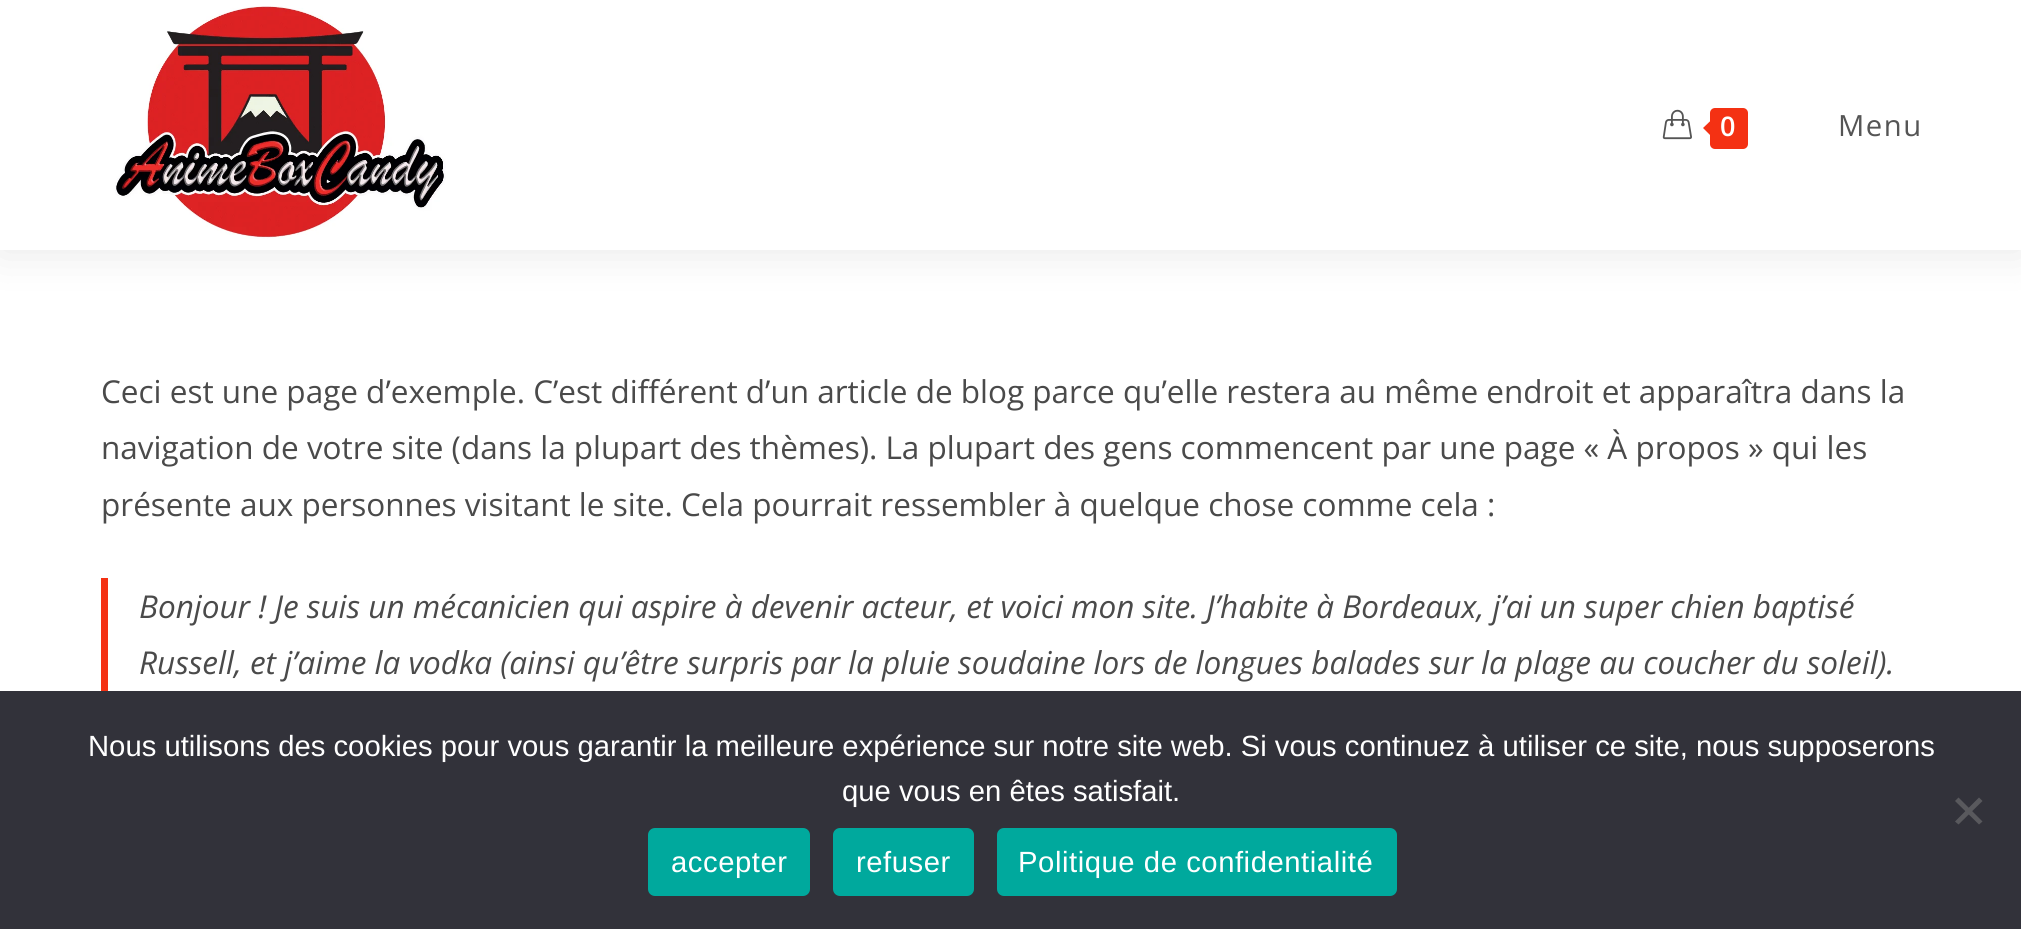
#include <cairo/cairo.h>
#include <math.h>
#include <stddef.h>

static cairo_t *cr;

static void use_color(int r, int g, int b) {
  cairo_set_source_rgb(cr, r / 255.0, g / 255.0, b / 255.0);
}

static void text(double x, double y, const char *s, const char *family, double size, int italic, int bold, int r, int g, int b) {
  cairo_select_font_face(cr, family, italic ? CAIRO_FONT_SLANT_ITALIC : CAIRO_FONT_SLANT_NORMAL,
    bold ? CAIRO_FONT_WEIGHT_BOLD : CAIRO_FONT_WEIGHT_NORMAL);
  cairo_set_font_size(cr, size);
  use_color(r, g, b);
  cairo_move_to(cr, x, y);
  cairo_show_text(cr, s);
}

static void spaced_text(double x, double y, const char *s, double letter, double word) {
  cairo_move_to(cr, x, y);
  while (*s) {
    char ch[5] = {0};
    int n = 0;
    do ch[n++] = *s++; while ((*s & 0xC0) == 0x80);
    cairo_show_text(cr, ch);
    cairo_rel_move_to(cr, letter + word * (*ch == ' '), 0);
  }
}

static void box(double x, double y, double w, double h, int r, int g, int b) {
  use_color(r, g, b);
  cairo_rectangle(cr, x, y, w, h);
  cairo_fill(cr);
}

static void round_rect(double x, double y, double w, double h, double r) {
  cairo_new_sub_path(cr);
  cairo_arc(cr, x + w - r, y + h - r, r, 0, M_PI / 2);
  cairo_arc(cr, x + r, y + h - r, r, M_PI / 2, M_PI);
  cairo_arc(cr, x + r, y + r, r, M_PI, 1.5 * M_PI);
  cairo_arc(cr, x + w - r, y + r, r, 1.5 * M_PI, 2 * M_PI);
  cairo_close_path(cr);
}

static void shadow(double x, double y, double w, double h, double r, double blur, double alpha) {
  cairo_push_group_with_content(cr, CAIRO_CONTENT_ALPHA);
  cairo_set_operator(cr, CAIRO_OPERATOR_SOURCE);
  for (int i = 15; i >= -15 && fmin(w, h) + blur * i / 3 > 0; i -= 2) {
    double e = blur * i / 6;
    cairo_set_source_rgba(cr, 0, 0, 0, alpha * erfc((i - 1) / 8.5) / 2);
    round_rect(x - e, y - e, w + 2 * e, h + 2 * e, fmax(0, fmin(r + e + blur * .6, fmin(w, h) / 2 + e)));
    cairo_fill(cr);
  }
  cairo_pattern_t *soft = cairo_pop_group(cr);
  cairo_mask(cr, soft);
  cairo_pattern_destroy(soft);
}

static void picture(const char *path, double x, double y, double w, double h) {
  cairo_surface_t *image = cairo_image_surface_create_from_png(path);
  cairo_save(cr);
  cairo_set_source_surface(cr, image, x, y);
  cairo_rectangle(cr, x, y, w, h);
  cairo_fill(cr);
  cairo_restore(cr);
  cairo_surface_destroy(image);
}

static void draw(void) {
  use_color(255, 255, 255);
  cairo_paint(cr);
  use_color(0, 0, 0);
  shadow(0, 0, 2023, 250, 0, 22.5, 0.1);
  box(0, 0, 2021, 250, 255, 255, 255);
  picture("img_01.png", 115, 6, 331, 233);
  picture("img_02.png", 1662, 109, 30, 31);
  use_color(244, 49, 19);
  round_rect(1710, 108, 38, 41, 5);
  cairo_fill(cr);
  cairo_new_path(cr);
  cairo_move_to(cr, 1714.5, 117);
  cairo_line_to(cr, 1714.5, 139.5);
  cairo_line_to(cr, 1703, 128);
  cairo_close_path(cr);
  cairo_fill(cr);
  box(101, 578, 7, 113, 244, 49, 19);
  box(0, 691, 2021, 238, 50, 50, 58);
  use_color(89, 89, 93);
  cairo_new_path(cr);
  cairo_move_to(cr, 1979, 797.5);
  cairo_line_to(cr, 1982.5, 801);
  cairo_line_to(cr, 1958.5, 824.5);
  cairo_line_to(cr, 1955, 821.5);
  cairo_close_path(cr);
  cairo_fill(cr);
  cairo_new_path(cr);
  cairo_move_to(cr, 1955, 801);
  cairo_line_to(cr, 1958.5, 797.5);
  cairo_line_to(cr, 1982.5, 821.5);
  cairo_line_to(cr, 1979, 824.5);
  cairo_close_path(cr);
  cairo_fill(cr);
  use_color(0, 169, 157);
  round_rect(648, 828, 162, 68, 7);
  cairo_fill(cr);
  round_rect(833, 828, 141, 68, 7);
  cairo_fill(cr);
  round_rect(997, 828, 400, 68, 7);
  cairo_fill(cr);
  cairo_select_font_face(cr, "Open Sans SemiBold", CAIRO_FONT_SLANT_NORMAL, CAIRO_FONT_WEIGHT_NORMAL);
  cairo_set_font_size(cr, 27);
  use_color(255, 255, 255);
  spaced_text(1720, 136, "0", 1.5, 0);
  cairo_select_font_face(cr, "Open Sans", CAIRO_FONT_SLANT_NORMAL, CAIRO_FONT_WEIGHT_NORMAL);
  cairo_set_font_size(cr, 29.25);
  use_color(85, 85, 85);
  spaced_text(1838, 136, "Menu", 1.5, 0);
  text(101, 403, "Ceci est une page d’exemple. C’est différent d’un article de blog parce qu’elle restera au même endroit et apparaîtra dans la", "Open Sans", 31.5, 0, 0, 74, 74, 74);
  text(101, 459, "navigation de votre site (dans la plupart des thèmes). La plupart des gens commencent par une page « À propos » qui les", "Open Sans", 31.5, 0, 0, 74, 74, 74);
  text(101, 516, "présente aux personnes visitant le site. Cela pourrait ressembler à quelque chose comme cela :", "Open Sans", 31.5, 0, 0, 74, 74, 74);
  text(139, 618, "Bonjour ! Je suis un mécanicien qui aspire à devenir acteur, et voici mon site. J’habite à Bordeaux, j’ai un super chien baptisé", "Open Sans", 31.5, 1, 0, 74, 74, 74);
  text(139, 674, "Russell, et j’aime la vodka (ainsi qu’être surpris par la pluie soudaine lors de longues balades sur la plage au coucher du soleil).", "Open Sans", 31.5, 1, 0, 74, 74, 74);
  text(88, 756, "Nous utilisons des cookies pour vous garantir la meilleure expérience sur notre site web. Si vous continuez à utiliser ce site, nous supposerons", "Liberation Sans", 29.25, 0, 0, 255, 255, 255);
  text(842, 801, "que vous en êtes satisfait.", "Liberation Sans", 29.25, 0, 0, 255, 255, 255);
  spaced_text(671, 872, "accepter", 0.55, 0);
  spaced_text(856, 872, "refuser", 0.55, 0);
  spaced_text(1018, 872, "Politique de confidentialité", 0.55, 0);
}

int main(void) {
  cairo_surface_t *surface = cairo_image_surface_create(CAIRO_FORMAT_RGB24, 2021, 929);
  cr = cairo_create(surface);
  cairo_font_options_t *options = cairo_font_options_create();
  cairo_font_options_set_hint_metrics(options, CAIRO_HINT_METRICS_OFF);
  cairo_font_options_set_hint_style(options, CAIRO_HINT_STYLE_NONE);
  cairo_set_font_options(cr, options);
  cairo_set_miter_limit(cr, 4);
  draw();
  cairo_surface_write_to_png(surface, "out.png");
  cairo_font_options_destroy(options);
  cairo_destroy(cr);
  cairo_surface_destroy(surface);
  return 0;
}
